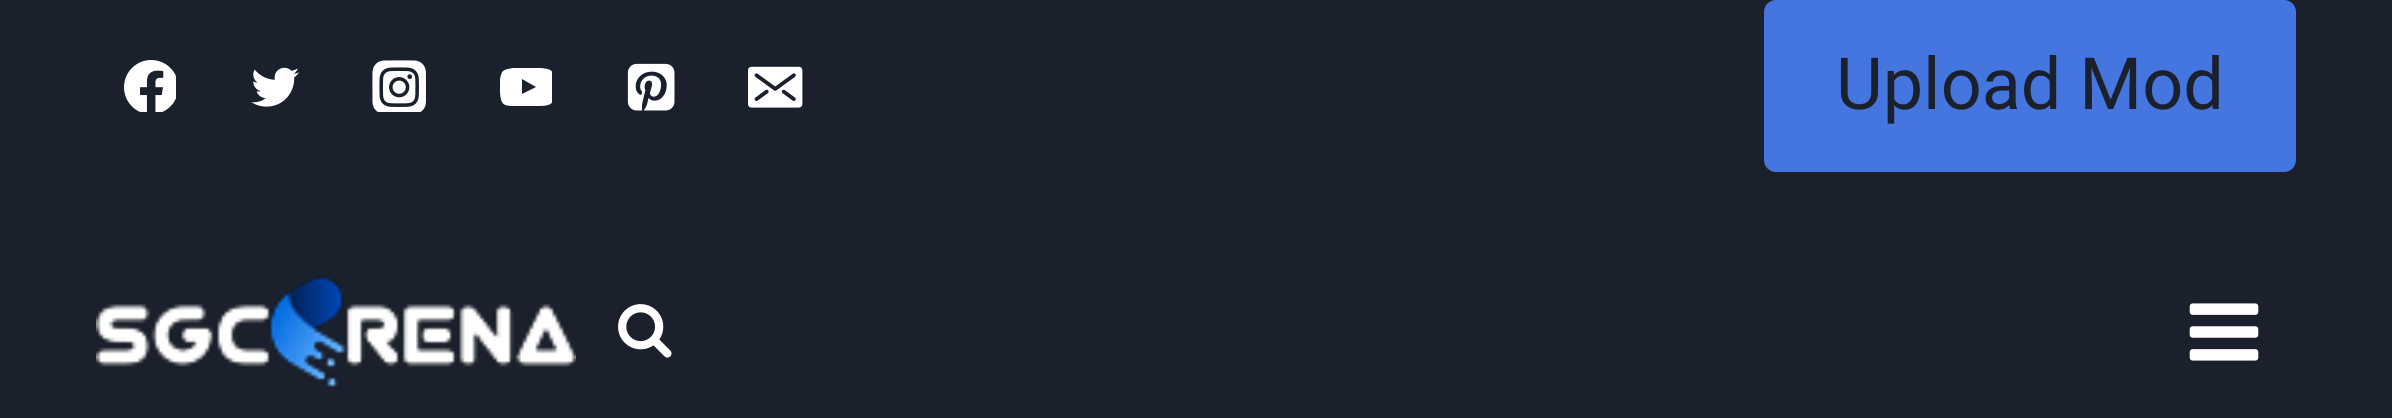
#include <cairo/cairo.h>
#include <math.h>
#include <stddef.h>

static cairo_t *cr;

static void use_color(int r, int g, int b) {
  cairo_set_source_rgb(cr, r / 255.0, g / 255.0, b / 255.0);
}

static void text(double x, double y, const char *s, const char *family, double size, int italic, int bold, int r, int g, int b) {
  cairo_select_font_face(cr, family, italic ? CAIRO_FONT_SLANT_ITALIC : CAIRO_FONT_SLANT_NORMAL,
    bold ? CAIRO_FONT_WEIGHT_BOLD : CAIRO_FONT_WEIGHT_NORMAL);
  cairo_set_font_size(cr, size);
  use_color(r, g, b);
  cairo_move_to(cr, x, y);
  cairo_show_text(cr, s);
}

static void round_rect(double x, double y, double w, double h, double r) {
  cairo_new_sub_path(cr);
  cairo_arc(cr, x + w - r, y + h - r, r, 0, M_PI / 2);
  cairo_arc(cr, x + r, y + h - r, r, M_PI / 2, M_PI);
  cairo_arc(cr, x + r, y + r, r, M_PI, 1.5 * M_PI);
  cairo_arc(cr, x + w - r, y + r, r, 1.5 * M_PI, 2 * M_PI);
  cairo_close_path(cr);
}

static void picture(const char *path, double x, double y, double w, double h) {
  cairo_surface_t *image = cairo_image_surface_create_from_png(path);
  cairo_save(cr);
  cairo_set_source_surface(cr, image, x, y);
  cairo_rectangle(cr, x, y, w, h);
  cairo_fill(cr);
  cairo_restore(cr);
  cairo_surface_destroy(image);
}

static void draw(void) {
  use_color(26, 32, 44);
  cairo_paint(cr);
  picture("img_01.png", 124, 60, 52, 52);
  picture("img_02.png", 251, 67, 48, 40);
  picture("img_03.png", 372, 60, 54, 52);
  cairo_save(cr);
  cairo_rectangle(cr, 500, 60, 52, 52);
  cairo_clip(cr);
  use_color(255, 255, 255);
  cairo_new_path(cr);
  cairo_move_to(cr, 522, 94);
  cairo_line_to(cr, 536, 87);
  cairo_line_to(cr, 522, 79);
  cairo_close_path(cr);
  cairo_move_to(cr, 527, 68);
  cairo_line_to(cr, 541, 68);
  cairo_curve_to(cr, 551, 69, 554, 70, 554, 81);
  cairo_curve_to(cr, 556, 108, 553, 106, 527, 106);
  cairo_line_to(cr, 513, 106);
  cairo_curve_to(cr, 503, 106, 501, 104, 500, 93);
  cairo_curve_to(cr, 500, 87, 499, 81, 501, 75);
  cairo_curve_to(cr, 502, 69, 508, 69, 513, 68);
  cairo_close_path(cr);
  cairo_fill(cr);
  cairo_restore(cr);
  picture("img_04.png", 627, 63, 48, 48);
  picture("img_05.png", 748, 66, 55, 42);
  use_color(69, 118, 224);
  round_rect(1764, 0, 532, 172, 12);
  cairo_fill(cr);
  picture("img_06.png", 96, 276, 480, 113);
  picture("img_07.png", 618, 304, 54, 54);
  picture("img_08.png", 2189, 303, 70, 58);
  text(1836, 109, "Upload Mod", "Roboto", 72, 0, 0, 26, 32, 44);
}

int main(void) {
  cairo_surface_t *surface = cairo_image_surface_create(CAIRO_FORMAT_RGB24, 2392, 418);
  cr = cairo_create(surface);
  cairo_font_options_t *options = cairo_font_options_create();
  cairo_font_options_set_hint_metrics(options, CAIRO_HINT_METRICS_OFF);
  cairo_font_options_set_hint_style(options, CAIRO_HINT_STYLE_NONE);
  cairo_set_font_options(cr, options);
  cairo_set_miter_limit(cr, 4);
  draw();
  cairo_surface_write_to_png(surface, "out.png");
  cairo_font_options_destroy(options);
  cairo_destroy(cr);
  cairo_surface_destroy(surface);
  return 0;
}
